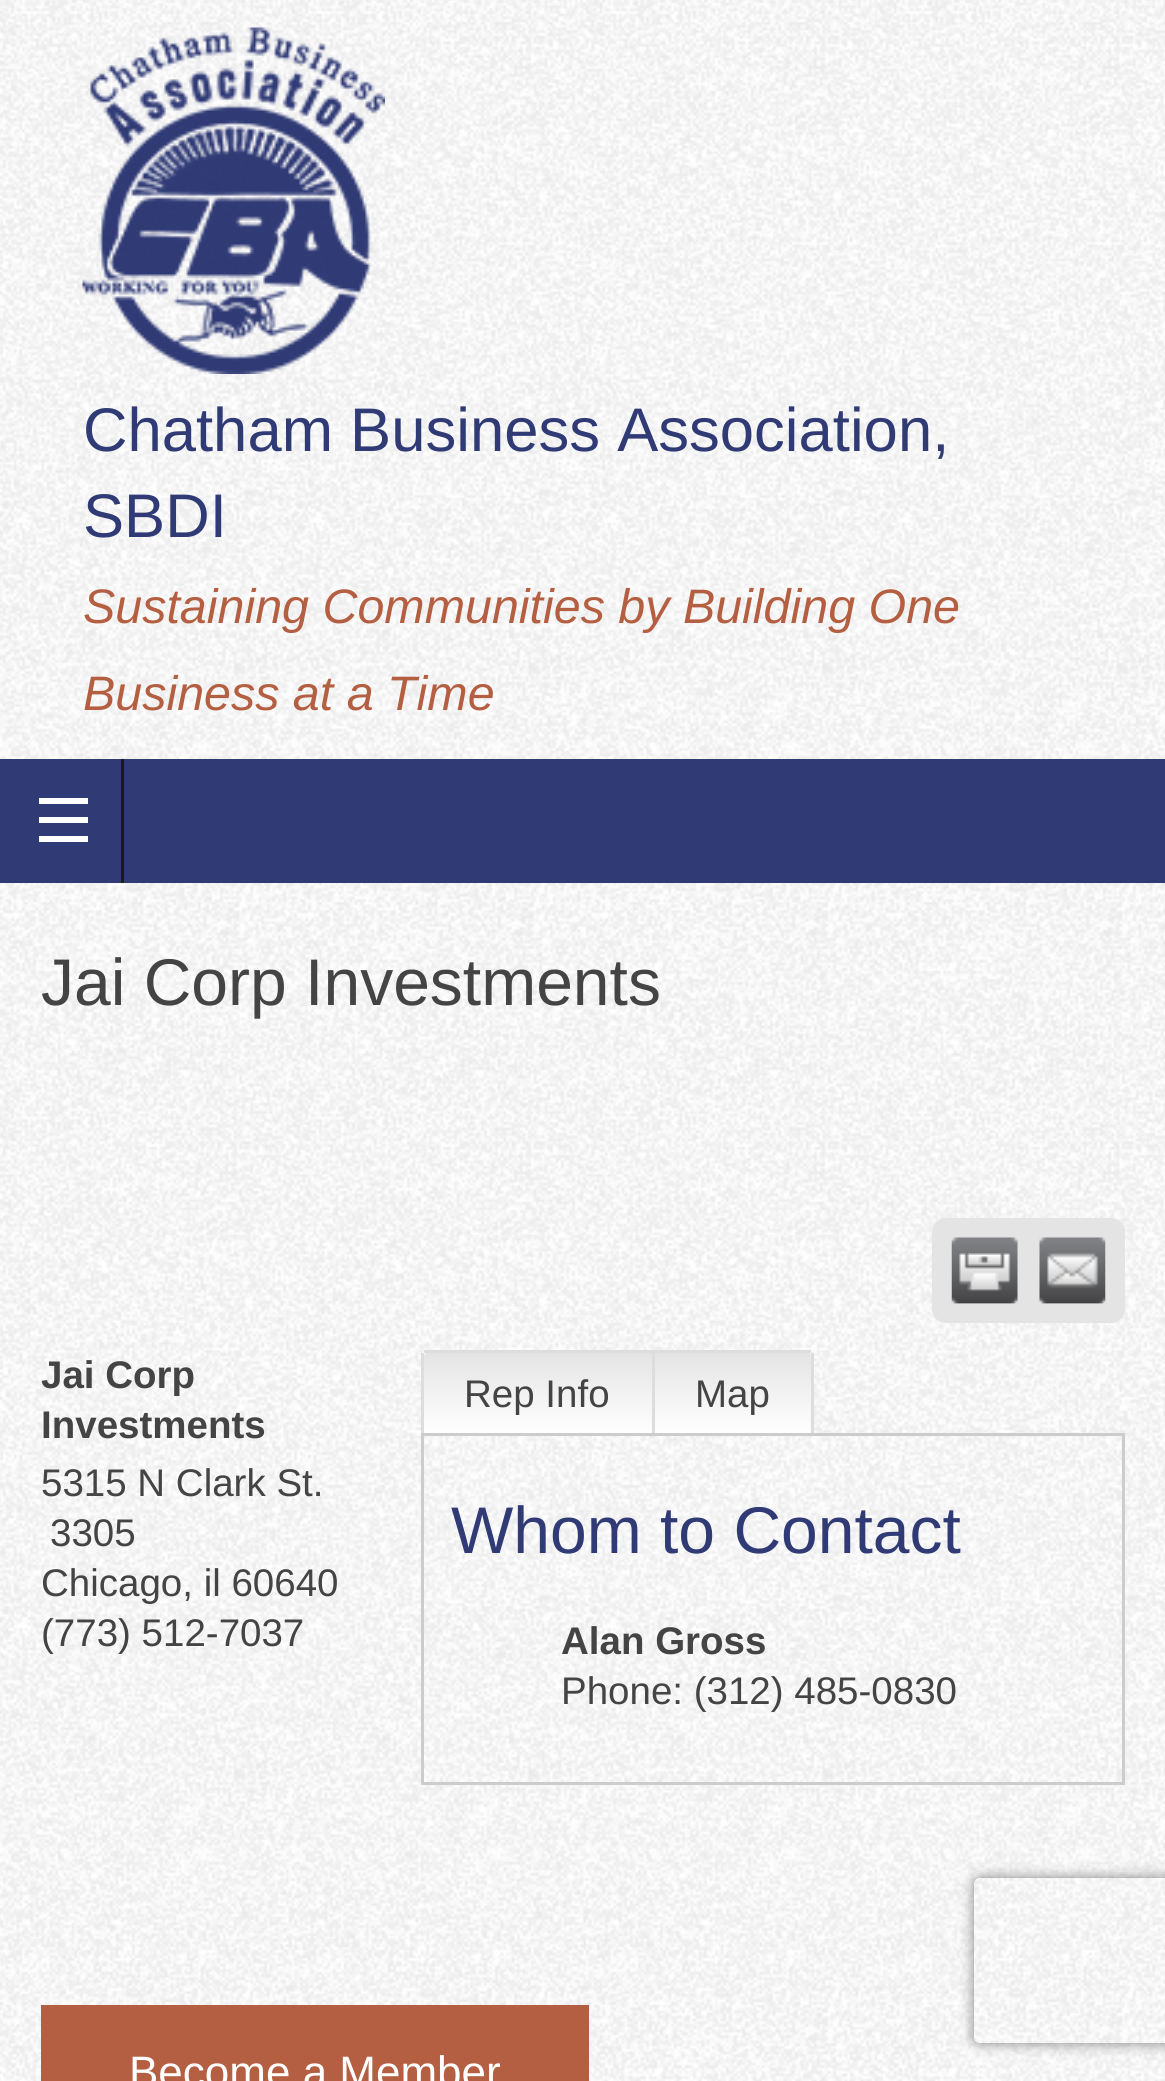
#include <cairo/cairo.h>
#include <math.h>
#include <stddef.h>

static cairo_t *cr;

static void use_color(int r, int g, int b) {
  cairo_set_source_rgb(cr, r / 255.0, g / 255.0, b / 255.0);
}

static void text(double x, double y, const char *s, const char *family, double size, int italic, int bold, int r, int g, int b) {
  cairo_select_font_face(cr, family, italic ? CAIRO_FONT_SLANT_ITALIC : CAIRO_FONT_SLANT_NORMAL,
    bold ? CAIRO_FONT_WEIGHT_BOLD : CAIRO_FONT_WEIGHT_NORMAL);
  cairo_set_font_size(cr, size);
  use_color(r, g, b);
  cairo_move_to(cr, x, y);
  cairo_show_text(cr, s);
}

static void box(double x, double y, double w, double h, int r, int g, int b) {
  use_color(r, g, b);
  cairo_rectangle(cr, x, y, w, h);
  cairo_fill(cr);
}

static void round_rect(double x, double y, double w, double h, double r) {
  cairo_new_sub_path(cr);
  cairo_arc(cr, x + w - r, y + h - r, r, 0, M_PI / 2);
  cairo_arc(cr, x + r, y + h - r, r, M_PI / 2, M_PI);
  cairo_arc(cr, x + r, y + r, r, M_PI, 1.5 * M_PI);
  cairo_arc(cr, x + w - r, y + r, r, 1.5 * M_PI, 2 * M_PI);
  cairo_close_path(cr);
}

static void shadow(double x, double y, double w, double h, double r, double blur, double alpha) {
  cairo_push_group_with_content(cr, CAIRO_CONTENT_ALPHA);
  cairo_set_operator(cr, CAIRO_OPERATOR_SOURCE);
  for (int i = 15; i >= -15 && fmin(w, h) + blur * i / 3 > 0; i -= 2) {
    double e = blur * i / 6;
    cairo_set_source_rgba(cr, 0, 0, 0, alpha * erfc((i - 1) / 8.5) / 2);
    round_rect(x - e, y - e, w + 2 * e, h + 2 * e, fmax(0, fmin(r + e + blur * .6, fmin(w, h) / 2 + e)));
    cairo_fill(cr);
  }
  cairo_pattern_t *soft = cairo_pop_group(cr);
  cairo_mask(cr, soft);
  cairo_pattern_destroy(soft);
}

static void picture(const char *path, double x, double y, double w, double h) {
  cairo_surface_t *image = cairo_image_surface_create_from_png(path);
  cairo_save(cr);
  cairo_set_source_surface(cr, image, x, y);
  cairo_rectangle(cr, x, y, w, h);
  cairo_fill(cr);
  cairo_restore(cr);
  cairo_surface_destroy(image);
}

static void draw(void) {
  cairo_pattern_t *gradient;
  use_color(255, 255, 255);
  cairo_paint(cr);
  picture("img_01.png", 0, 0, 1165, 2081);
  picture("img_02.png", 82, 27, 303, 347);
  box(0, 759, 1165, 124, 48, 59, 118);
  box(121, 759, 3, 124, 26, 26, 26);
  box(39, 836, 49, 6, 255, 255, 255);
  box(39, 817, 49, 6, 255, 255, 255);
  box(39, 798, 49, 6, 255, 255, 255);
  use_color(228, 228, 228);
  round_rect(932, 1218, 193, 105, 14);
  cairo_fill(cr);
  picture("img_03.png", 951, 1237, 67, 67);
  picture("img_04.png", 1039, 1237, 67, 67);
  gradient = cairo_pattern_create_linear(538, 1353, 538, 1433);
  cairo_pattern_add_color_stop_rgba(gradient, 0, 0.894, 0.894, 0.894, 1);
  cairo_pattern_add_color_stop_rgba(gradient, 1, 1, 1, 1, 1);
  cairo_set_source(cr, gradient);
  cairo_pattern_destroy(gradient);
  cairo_new_path(cr);
  cairo_move_to(cr, 427, 1353);
  cairo_line_to(cr, 652, 1353);
  cairo_line_to(cr, 652, 1433);
  cairo_line_to(cr, 424, 1433);
  cairo_line_to(cr, 424, 1356);
  cairo_curve_to(cr, 424, 1354.5, 425.5, 1353, 427, 1353);
  cairo_close_path(cr);
  cairo_fill(cr);
  box(424, 1350, 387, 3, 221, 221, 221);
  box(652, 1350, 3, 83, 221, 221, 221);
  box(421, 1353, 3, 80, 221, 221, 221);
  gradient = cairo_pattern_create_linear(733, 1353, 733, 1433);
  cairo_pattern_add_color_stop_rgba(gradient, 0, 0.894, 0.894, 0.894, 1);
  cairo_pattern_add_color_stop_rgba(gradient, 1, 1, 1, 1, 1);
  cairo_set_source(cr, gradient);
  cairo_pattern_destroy(gradient);
  cairo_new_path(cr);
  cairo_move_to(cr, 655, 1353);
  cairo_line_to(cr, 808, 1353);
  cairo_curve_to(cr, 809.5, 1353, 811, 1354.5, 811, 1356);
  cairo_line_to(cr, 811, 1433);
  cairo_line_to(cr, 655, 1433);
  cairo_close_path(cr);
  cairo_fill(cr);
  box(811, 1353, 3, 80, 221, 221, 221);
  cairo_rectangle(cr, 422.5, 1434.5, 701, 349);
  use_color(204, 204, 204);
  cairo_set_line_width(cr, 3);
  cairo_stroke(cr);
  box(41, 2005, 548, 76, 180, 95, 66);
  cairo_save(cr);
  cairo_set_fill_rule(cr, CAIRO_FILL_RULE_EVEN_ODD);
  cairo_new_path(cr);
  cairo_move_to(cr, 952, 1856);
  cairo_line_to(cr, 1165, 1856);
  cairo_line_to(cr, 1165, 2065);
  cairo_line_to(cr, 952, 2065);
  cairo_close_path(cr);
  cairo_move_to(cr, 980, 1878);
  cairo_line_to(cr, 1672, 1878);
  cairo_curve_to(cr, 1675.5, 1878, 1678, 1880.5, 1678, 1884);
  cairo_line_to(cr, 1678, 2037);
  cairo_curve_to(cr, 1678, 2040.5, 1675.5, 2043, 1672, 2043);
  cairo_line_to(cr, 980, 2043);
  cairo_curve_to(cr, 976.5, 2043, 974, 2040.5, 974, 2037);
  cairo_line_to(cr, 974, 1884);
  cairo_curve_to(cr, 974, 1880.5, 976.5, 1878, 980, 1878);
  cairo_close_path(cr);
  cairo_clip(cr);
  use_color(128, 128, 128);
  shadow(974, 1878, 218, 165, 6, 7, 1);
  cairo_restore(cr);
  text(83, 451, "Chatham Business Association,", "Liberation Sans", 61.6, 0, 0, 48, 59, 118);
  text(83, 537, "SBDI", "Liberation Sans", 61.6, 0, 0, 48, 59, 118);
  text(83, 623, "Sustaining Communities by Building One", "Liberation Sans", 48.4, 1, 0, 180, 95, 66);
  text(83, 710, "Business at a Time", "Liberation Sans", 48.4, 1, 0, 180, 95, 66);
  text(41, 1005, "Jai Corp Investments", "Liberation Sans", 66, 0, 0, 68, 68, 68);
  text(41, 1388, "Jai Corp", "Liberation Sans", 38.5, 0, 1, 68, 68, 68);
  text(41, 1438, "Investments", "Liberation Sans", 38.5, 0, 1, 68, 68, 68);
  text(41, 1496, "5315 N Clark St.", "Liberation Sans", 38.5, 0, 0, 68, 68, 68);
  text(50, 1546, "3305", "Liberation Sans", 38.5, 0, 0, 68, 68, 68);
  text(41, 1596, "Chicago, il 60640", "Liberation Sans", 38.5, 0, 0, 68, 68, 68);
  text(41, 1646, "(773) 512-7037", "Liberation Sans", 38.5, 0, 0, 68, 68, 68);
  text(464, 1407, "Rep Info", "Liberation Sans", 38.5, 0, 0, 68, 68, 68);
  text(695, 1407, "Map", "Liberation Sans", 38.5, 0, 0, 68, 68, 68);
  text(451, 1553, "Whom to Contact", "Liberation Sans", 66, 0, 0, 48, 59, 118);
  text(561, 1654, "Alan Gross", "Liberation Sans", 38.5, 0, 1, 68, 68, 68);
  text(561, 1704, "Phone: (312) 485-0830", "Liberation Sans", 38.5, 0, 0, 68, 68, 68);
  text(129, 2087, "Become a Member", "Liberation Sans", 44, 0, 0, 255, 255, 255);
}

int main(void) {
  cairo_surface_t *surface = cairo_image_surface_create(CAIRO_FORMAT_RGB24, 1165, 2081);
  cr = cairo_create(surface);
  cairo_font_options_t *options = cairo_font_options_create();
  cairo_font_options_set_hint_metrics(options, CAIRO_HINT_METRICS_OFF);
  cairo_font_options_set_hint_style(options, CAIRO_HINT_STYLE_NONE);
  cairo_set_font_options(cr, options);
  cairo_set_miter_limit(cr, 4);
  draw();
  cairo_surface_write_to_png(surface, "out.png");
  cairo_font_options_destroy(options);
  cairo_destroy(cr);
  cairo_surface_destroy(surface);
  return 0;
}
